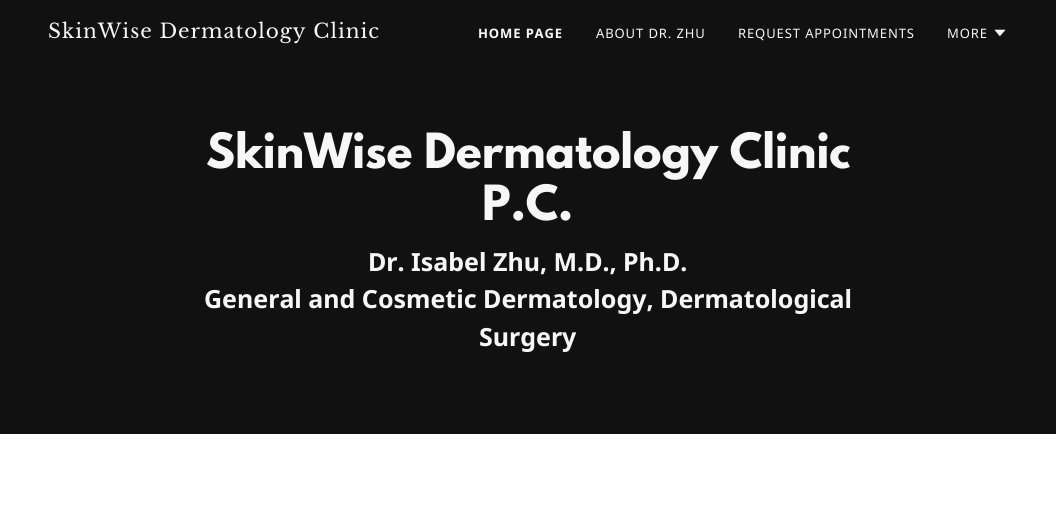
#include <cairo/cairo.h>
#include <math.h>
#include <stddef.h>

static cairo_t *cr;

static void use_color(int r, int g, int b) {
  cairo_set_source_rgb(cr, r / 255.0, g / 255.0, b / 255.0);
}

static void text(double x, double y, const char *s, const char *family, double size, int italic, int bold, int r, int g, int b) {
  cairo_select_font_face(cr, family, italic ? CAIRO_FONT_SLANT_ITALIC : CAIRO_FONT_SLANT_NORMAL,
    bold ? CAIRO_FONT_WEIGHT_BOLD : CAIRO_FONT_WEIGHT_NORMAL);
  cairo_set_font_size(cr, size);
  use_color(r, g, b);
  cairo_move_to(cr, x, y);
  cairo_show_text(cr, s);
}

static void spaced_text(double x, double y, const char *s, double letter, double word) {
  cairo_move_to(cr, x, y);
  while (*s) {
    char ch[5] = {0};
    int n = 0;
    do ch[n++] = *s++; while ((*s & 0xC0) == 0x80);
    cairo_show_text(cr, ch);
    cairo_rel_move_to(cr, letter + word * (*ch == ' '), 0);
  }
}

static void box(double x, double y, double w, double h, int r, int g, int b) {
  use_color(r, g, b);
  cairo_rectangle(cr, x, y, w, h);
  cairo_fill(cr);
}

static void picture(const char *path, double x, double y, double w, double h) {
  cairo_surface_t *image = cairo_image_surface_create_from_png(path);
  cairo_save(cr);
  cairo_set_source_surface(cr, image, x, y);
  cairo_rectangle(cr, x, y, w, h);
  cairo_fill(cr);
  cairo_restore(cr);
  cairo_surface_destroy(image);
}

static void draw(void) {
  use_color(255, 255, 255);
  cairo_paint(cr);
  box(0, 0, 1056, 434, 17, 17, 17);
  picture("img_01.png", 994, 29, 12, 8);
  cairo_select_font_face(cr, "Libre Baskerville", CAIRO_FONT_SLANT_NORMAL, CAIRO_FONT_WEIGHT_NORMAL);
  cairo_set_font_size(cr, 20);
  use_color(247, 247, 247);
  spaced_text(48, 38, "SkinWise Dermatology Clinic", 1, 0);
  cairo_select_font_face(cr, "Noto Sans", CAIRO_FONT_SLANT_NORMAL, CAIRO_FONT_WEIGHT_BOLD);
  cairo_set_font_size(cr, 13);
  spaced_text(478, 38, "HOME PAGE", 0.9, 0);
  cairo_select_font_face(cr, "Noto Sans", CAIRO_FONT_SLANT_NORMAL, CAIRO_FONT_WEIGHT_NORMAL);
  spaced_text(596, 38, "ABOUT DR. ZHU", 0.9, 0);
  spaced_text(738, 38, "REQUEST APPOINTMENTS", 0.9, 0);
  spaced_text(947, 38, "MORE", 0.9, 0);
  text(206, 168, "SkinWise Dermatology Clinic", "League Spartan", 43, 0, 1, 247, 247, 247);
  text(482, 220, "P.C.", "League Spartan", 43, 0, 1, 247, 247, 247);
  text(368, 271, "Dr. Isabel Zhu, M.D., Ph.D.", "Noto Sans", 25, 0, 1, 247, 247, 247);
  text(204, 308, "General and Cosmetic Dermatology, Dermatological", "Noto Sans", 25, 0, 1, 247, 247, 247);
  text(479, 346, "Surgery", "Noto Sans", 25, 0, 1, 247, 247, 247);
}

int main(void) {
  cairo_surface_t *surface = cairo_image_surface_create(CAIRO_FORMAT_RGB24, 1056, 510);
  cr = cairo_create(surface);
  cairo_font_options_t *options = cairo_font_options_create();
  cairo_font_options_set_hint_metrics(options, CAIRO_HINT_METRICS_OFF);
  cairo_font_options_set_hint_style(options, CAIRO_HINT_STYLE_NONE);
  cairo_set_font_options(cr, options);
  cairo_set_miter_limit(cr, 4);
  draw();
  cairo_surface_write_to_png(surface, "out.png");
  cairo_font_options_destroy(options);
  cairo_destroy(cr);
  cairo_surface_destroy(surface);
  return 0;
}
